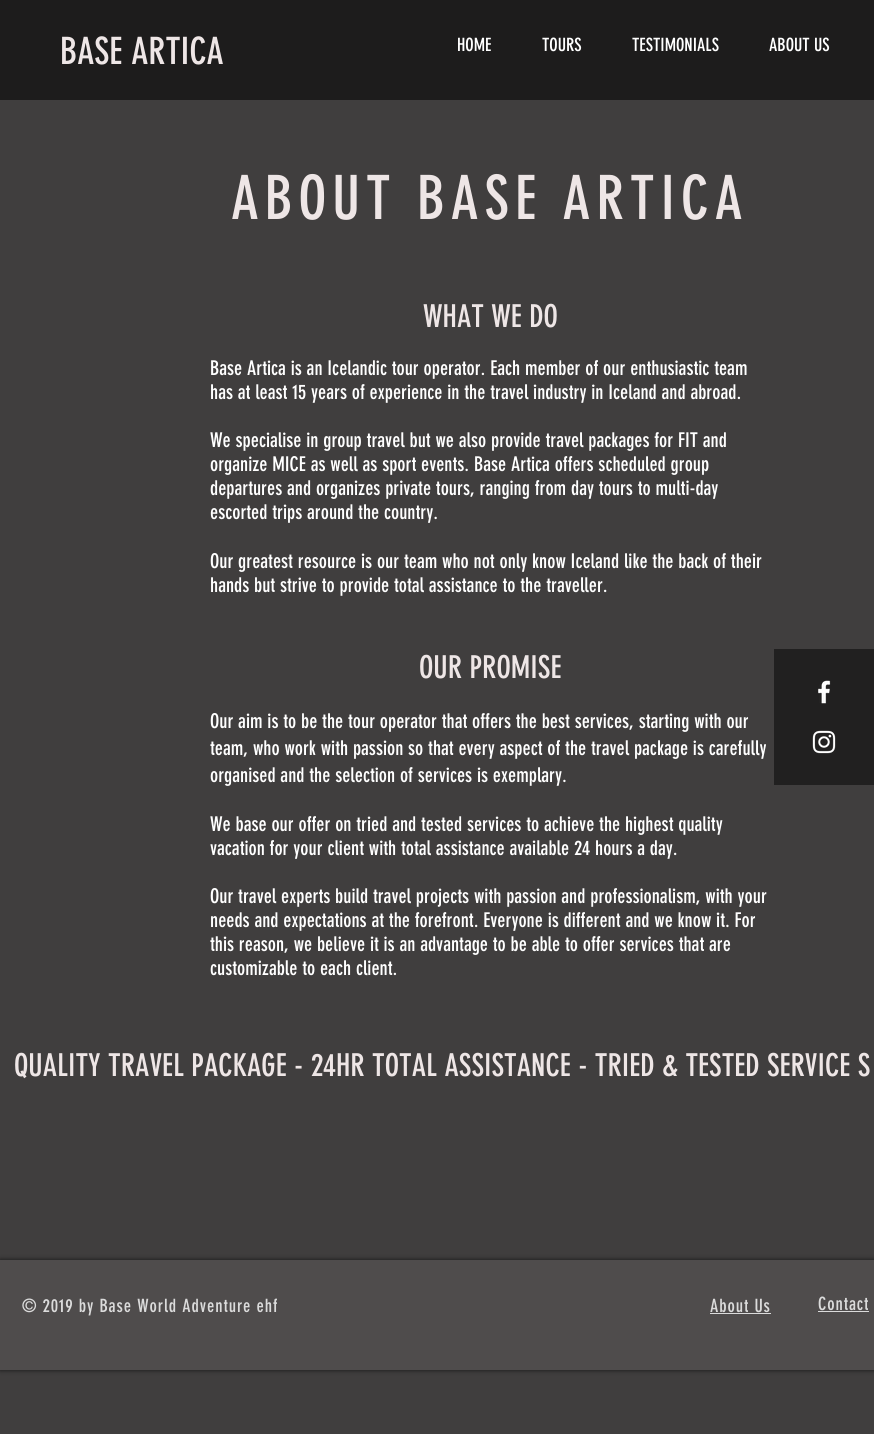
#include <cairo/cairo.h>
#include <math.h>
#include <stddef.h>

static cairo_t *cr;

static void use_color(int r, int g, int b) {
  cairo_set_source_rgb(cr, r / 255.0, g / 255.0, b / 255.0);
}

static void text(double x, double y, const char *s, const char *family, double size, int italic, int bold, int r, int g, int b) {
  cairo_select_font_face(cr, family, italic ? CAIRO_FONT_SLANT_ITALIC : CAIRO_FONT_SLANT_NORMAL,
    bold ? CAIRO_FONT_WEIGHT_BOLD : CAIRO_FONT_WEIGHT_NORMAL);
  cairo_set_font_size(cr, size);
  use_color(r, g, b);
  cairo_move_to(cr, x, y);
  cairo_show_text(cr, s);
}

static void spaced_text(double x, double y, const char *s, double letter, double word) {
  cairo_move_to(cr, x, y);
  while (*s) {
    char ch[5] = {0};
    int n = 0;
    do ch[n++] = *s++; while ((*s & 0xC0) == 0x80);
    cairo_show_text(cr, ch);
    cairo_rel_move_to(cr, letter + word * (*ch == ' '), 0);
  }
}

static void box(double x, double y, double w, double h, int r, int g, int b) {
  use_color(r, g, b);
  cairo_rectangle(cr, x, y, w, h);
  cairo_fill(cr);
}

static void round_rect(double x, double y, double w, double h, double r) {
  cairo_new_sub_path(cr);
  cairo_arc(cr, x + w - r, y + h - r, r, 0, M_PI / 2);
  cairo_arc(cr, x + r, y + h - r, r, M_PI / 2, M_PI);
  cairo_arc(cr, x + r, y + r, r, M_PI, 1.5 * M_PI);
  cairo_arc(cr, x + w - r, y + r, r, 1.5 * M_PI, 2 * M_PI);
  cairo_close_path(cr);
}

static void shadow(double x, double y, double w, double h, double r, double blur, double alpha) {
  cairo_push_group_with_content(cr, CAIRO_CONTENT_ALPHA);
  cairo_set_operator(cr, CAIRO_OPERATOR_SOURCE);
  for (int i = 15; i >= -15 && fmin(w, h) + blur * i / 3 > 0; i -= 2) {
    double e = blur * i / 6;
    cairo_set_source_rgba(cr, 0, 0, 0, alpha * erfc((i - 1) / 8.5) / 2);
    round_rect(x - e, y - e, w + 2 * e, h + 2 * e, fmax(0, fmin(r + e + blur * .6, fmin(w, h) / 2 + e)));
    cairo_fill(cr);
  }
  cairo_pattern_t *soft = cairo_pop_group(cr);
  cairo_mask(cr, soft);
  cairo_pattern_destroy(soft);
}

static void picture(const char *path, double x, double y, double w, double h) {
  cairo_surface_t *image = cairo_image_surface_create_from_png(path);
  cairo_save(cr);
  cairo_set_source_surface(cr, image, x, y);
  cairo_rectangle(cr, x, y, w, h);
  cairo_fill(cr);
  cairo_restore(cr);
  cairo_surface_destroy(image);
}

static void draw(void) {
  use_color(64, 62, 62);
  cairo_paint(cr);
  box(0, 0, 874, 100, 29, 28, 28);
  box(774, 649, 100, 136, 33, 32, 32);
  picture("img_01.png", 818, 680, 13, 24);
  picture("img_02.png", 812, 730, 24, 24);
  use_color(0, 0, 0);
  shadow(0, 1260, 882, 110, 0, 2.5, 0.7);
  box(0, 1260, 874, 110, 79, 76, 76);
  box(710, 1313, 61, 1, 219, 219, 219);
  box(818, 1311, 51, 1, 219, 219, 219);
  text(60, 64, "BASE ARTICA", "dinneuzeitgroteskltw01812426", 37, 0, 0, 238, 230, 230);
  text(457, 51, "HOME", "dinneuzeitgroteskltw01812426", 18, 0, 0, 255, 255, 255);
  text(542, 51, "TOURS", "dinneuzeitgroteskltw01812426", 18, 0, 0, 255, 255, 255);
  text(632, 51, "TESTIMONIALS", "dinneuzeitgroteskltw01812426", 18, 0, 0, 255, 255, 255);
  text(769, 51, "ABOUT US", "dinneuzeitgroteskltw01812426", 18, 0, 0, 255, 255, 255);
  cairo_set_font_size(cr, 60);
  use_color(238, 230, 230);
  spaced_text(231, 219, "ABOUT BASE ARTICA", 6, 0);
  text(423, 327, "WHAT WE DO", "dinneuzeitgroteskltw01812426", 31, 0, 0, 238, 230, 230);
  text(210, 375, "Base Artica is an Icelandic tour operator. Each member of our enthusiastic team", "dinneuzeitgroteskltw01812426", 20, 0, 0, 255, 255, 255);
  text(210, 399, "has at least 15 years of experience in the travel industry in Iceland and abroad.", "dinneuzeitgroteskltw01812426", 20, 0, 0, 255, 255, 255);
  text(210, 447, "We specialise in group travel but we also provide travel packages for FIT and", "dinneuzeitgroteskltw01812426", 20, 0, 0, 255, 255, 255);
  text(210, 471, "organize MICE as well as sport events. Base Artica offers scheduled group", "dinneuzeitgroteskltw01812426", 20, 0, 0, 255, 255, 255);
  text(210, 495, "departures and organizes private tours, ranging from day tours to multi-day", "dinneuzeitgroteskltw01812426", 20, 0, 0, 255, 255, 255);
  text(210, 519, "escorted trips around the country.", "dinneuzeitgroteskltw01812426", 20, 0, 0, 255, 255, 255);
  text(210, 568, "Our greatest resource is our team who not only know Iceland like the back of their", "dinneuzeitgroteskltw01812426", 20, 0, 0, 255, 255, 255);
  text(210, 592, "hands but strive to provide total assistance to the traveller.", "dinneuzeitgroteskltw01812426", 20, 0, 0, 255, 255, 255);
  text(419, 678, "OUR PROMISE", "dinneuzeitgroteskltw01812426", 31, 0, 0, 238, 230, 230);
  text(210, 728, "Our aim is to be the tour operator that offers the best services, starting with our", "dinneuzeitgroteskltw01812426", 20, 0, 0, 255, 255, 255);
  text(210, 755, "team, who work with passion so that every aspect of the travel package is carefully", "dinneuzeitgroteskltw01812426", 20, 0, 0, 255, 255, 255);
  text(210, 782, "organised and the selection of services is exemplary.", "dinneuzeitgroteskltw01812426", 20, 0, 0, 255, 255, 255);
  text(210, 831, "We base our offer on tried and tested services to achieve the highest quality", "dinneuzeitgroteskltw01812426", 20, 0, 0, 255, 255, 255);
  text(210, 855, "vacation for your client with total assistance available 24 hours a day.", "dinneuzeitgroteskltw01812426", 20, 0, 0, 255, 255, 255);
  text(210, 903, "Our travel experts build travel projects with passion and professionalism, with your", "dinneuzeitgroteskltw01812426", 20, 0, 0, 255, 255, 255);
  text(210, 927, "needs and expectations at the forefront. Everyone is different and we know it. For", "dinneuzeitgroteskltw01812426", 20, 0, 0, 255, 255, 255);
  text(210, 951, "this reason, we believe it is an advantage to be able to offer services that are", "dinneuzeitgroteskltw01812426", 20, 0, 0, 255, 255, 255);
  text(210, 975, "customizable to each client.", "dinneuzeitgroteskltw01812426", 20, 0, 0, 255, 255, 255);
  text(14, 1076, "QUALITY TRAVEL PACKAGE - 24HR TOTAL ASSISTANCE - TRIED & TESTED SERVICE S", "dinneuzeitgroteskltw01812426", 31, 0, 0, 238, 230, 230);
  cairo_set_font_size(cr, 18);
  use_color(219, 219, 219);
  spaced_text(22, 1312, "© 2019 by Base World Adventure ehf", 0.9, 0);
  spaced_text(710, 1312, "About Us", 0.9, 0);
  spaced_text(818, 1310, "Contact", 0.9, 0);
}

int main(void) {
  cairo_surface_t *surface = cairo_image_surface_create(CAIRO_FORMAT_RGB24, 874, 1434);
  cr = cairo_create(surface);
  cairo_font_options_t *options = cairo_font_options_create();
  cairo_font_options_set_hint_metrics(options, CAIRO_HINT_METRICS_OFF);
  cairo_font_options_set_hint_style(options, CAIRO_HINT_STYLE_NONE);
  cairo_set_font_options(cr, options);
  cairo_set_miter_limit(cr, 4);
  draw();
  cairo_surface_write_to_png(surface, "out.png");
  cairo_font_options_destroy(options);
  cairo_destroy(cr);
  cairo_surface_destroy(surface);
  return 0;
}
